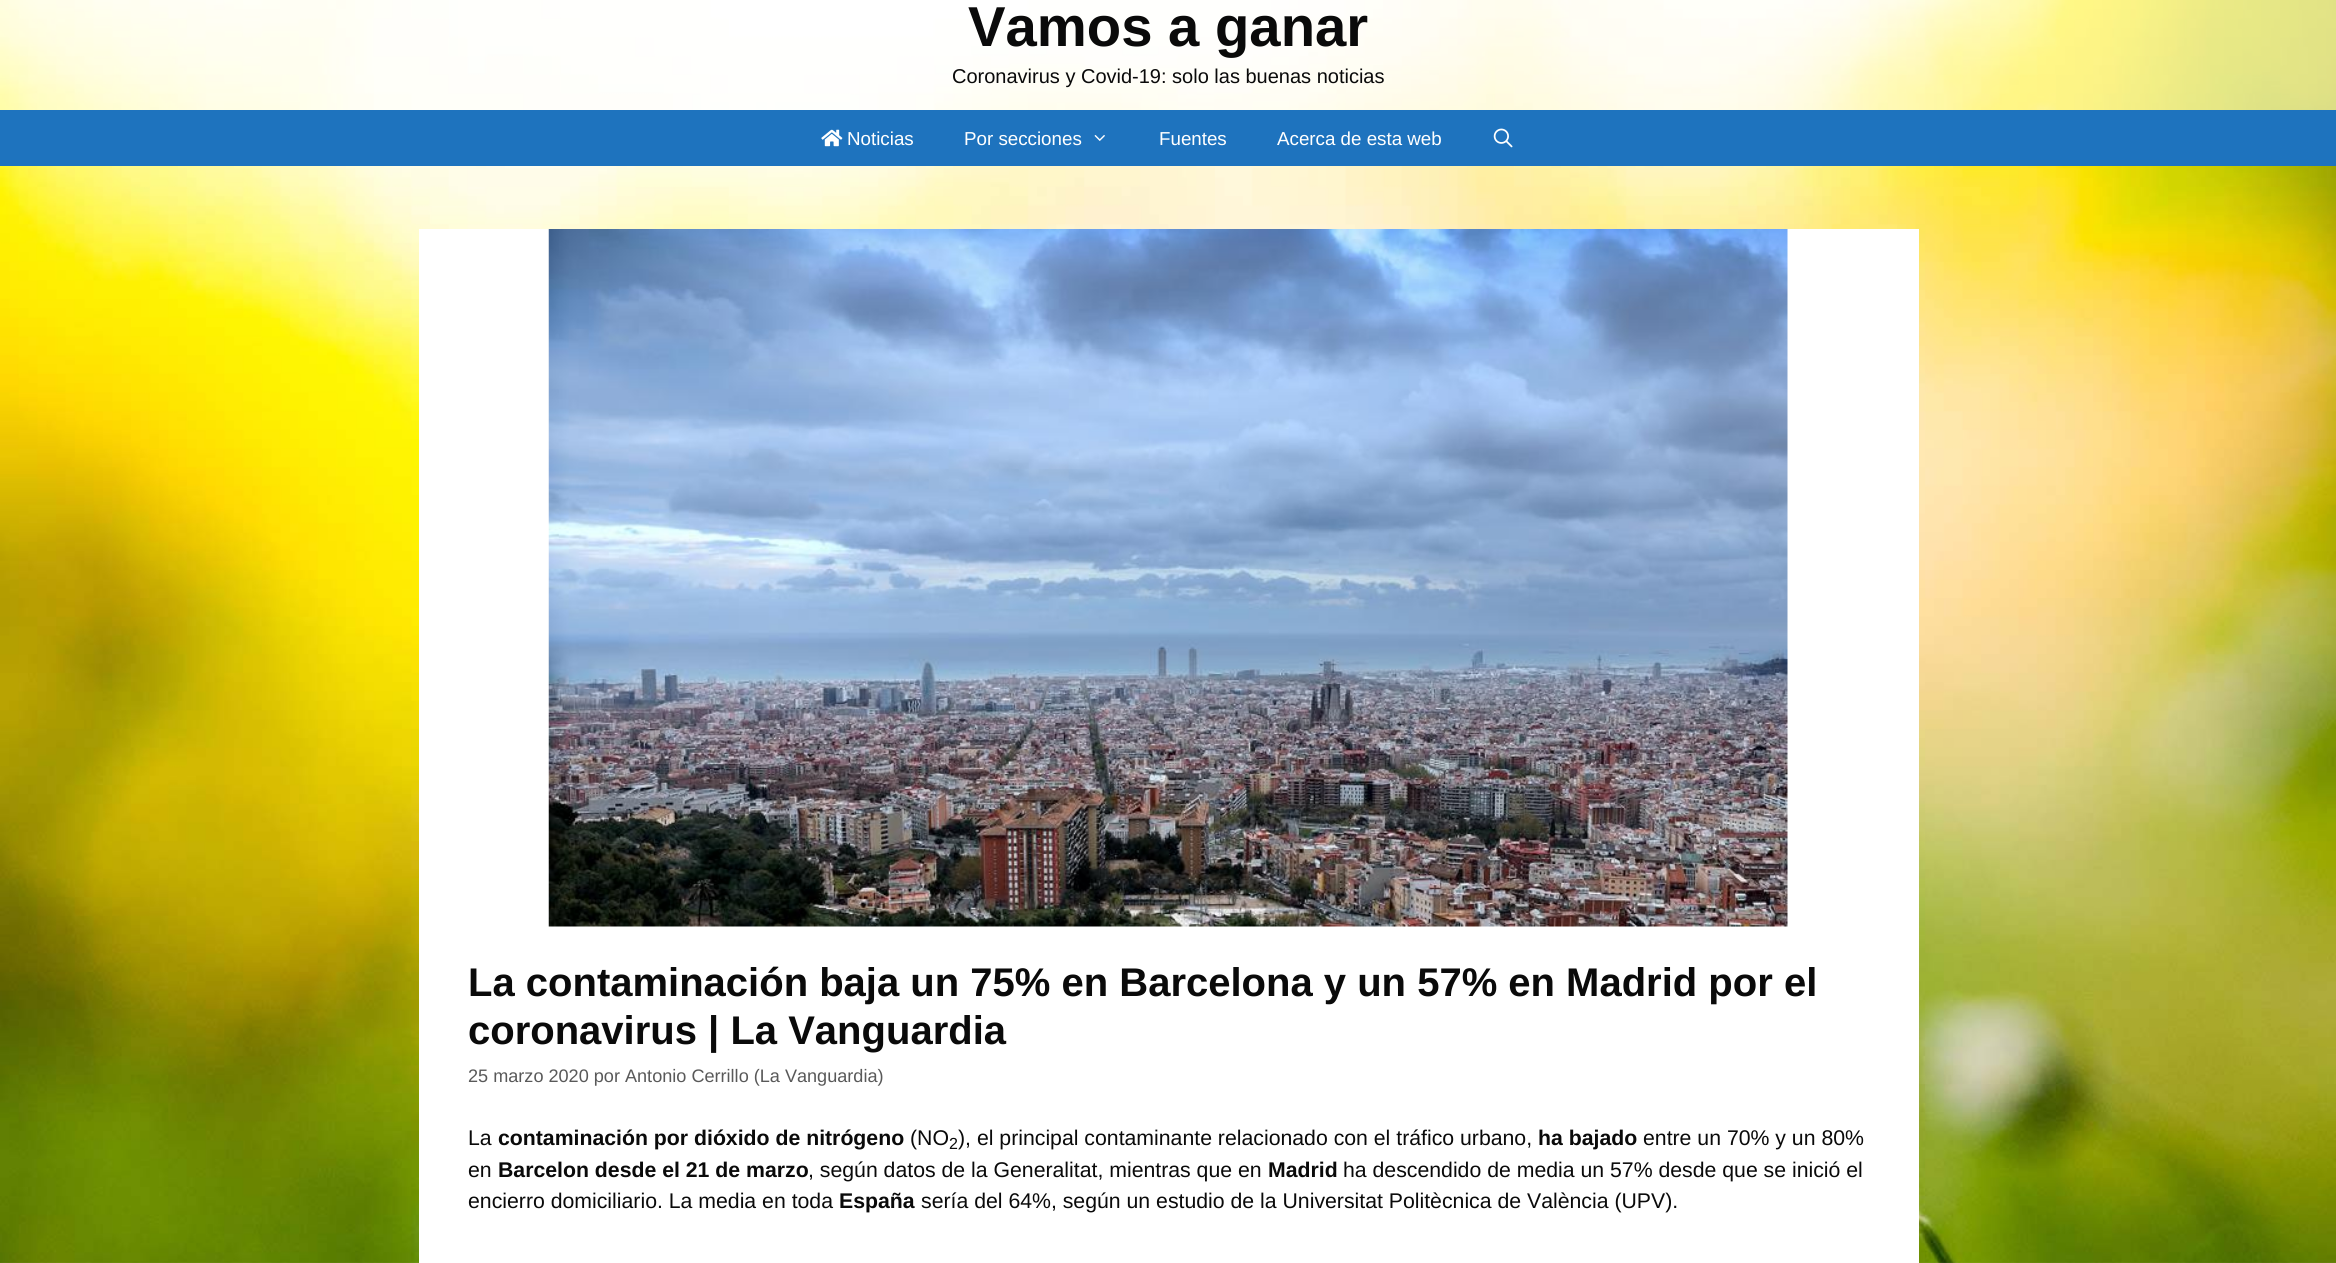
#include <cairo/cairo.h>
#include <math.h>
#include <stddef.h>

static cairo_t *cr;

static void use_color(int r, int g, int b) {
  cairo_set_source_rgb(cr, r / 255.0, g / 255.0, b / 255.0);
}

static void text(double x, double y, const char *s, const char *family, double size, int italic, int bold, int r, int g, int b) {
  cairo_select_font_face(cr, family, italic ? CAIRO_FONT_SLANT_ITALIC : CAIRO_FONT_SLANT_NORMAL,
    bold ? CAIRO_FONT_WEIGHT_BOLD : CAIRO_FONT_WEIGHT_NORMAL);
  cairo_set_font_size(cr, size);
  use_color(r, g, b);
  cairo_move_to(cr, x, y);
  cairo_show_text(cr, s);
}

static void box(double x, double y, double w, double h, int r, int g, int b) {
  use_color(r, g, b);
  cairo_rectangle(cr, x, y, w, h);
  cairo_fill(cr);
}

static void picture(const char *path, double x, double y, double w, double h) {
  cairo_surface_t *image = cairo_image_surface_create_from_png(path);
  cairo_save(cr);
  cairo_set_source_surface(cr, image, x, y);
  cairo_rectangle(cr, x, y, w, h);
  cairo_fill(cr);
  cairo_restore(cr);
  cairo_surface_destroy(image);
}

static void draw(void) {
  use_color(255, 255, 255);
  cairo_paint(cr);
  picture("img_01.png", 0, 0, 2336, 1263);
  cairo_set_source_rgba(cr, 1, 1, 1, 0.52);
  cairo_rectangle(cr, 0, 0, 2336, 110);
  cairo_fill(cr);
  box(0, 110, 2336, 56, 30, 115, 190);
  picture("img_02.png", 821, 129, 22, 18);
  picture("img_03.png", 1094, 135, 11, 6);
  picture("img_04.png", 1493, 128, 20, 20);
  box(419, 229, 1500, 1034, 255, 255, 255);
  picture("img_05.png", 548, 229, 1240, 698);
  text(968, 46, "Vamos a ganar", "Arimo", 56.25, 0, 1, 10, 10, 10);
  text(952, 83, "Coronavirus y Covid-19: solo las buenas noticias", "Arimo", 20, 0, 0, 10, 10, 10);
  text(847, 145, "Noticias", "Arimo", 18.75, 0, 0, 255, 255, 255);
  text(964, 145, "Por secciones", "Arimo", 18.75, 0, 0, 255, 255, 255);
  text(1159, 145, "Fuentes", "Arimo", 18.75, 0, 0, 255, 255, 255);
  text(1277, 145, "Acerca de esta web", "Arimo", 18.75, 0, 0, 255, 255, 255);
  text(468, 996, "La contaminación baja un 75% en Barcelona y un 57% en Madrid por el", "Arimo", 40, 0, 1, 10, 10, 10);
  text(468, 1044, "coronavirus | La Vanguardia", "Arimo", 40, 0, 1, 10, 10, 10);
  text(468, 1082, "25 marzo 2020 por Antonio Cerrillo (La Vanguardia)", "Arimo", 18.1, 0, 0, 89, 89, 89);
  text(468, 1145, "La", "Arimo", 21.25, 0, 0, 10, 10, 10);
  text(498, 1145, "contaminación por dióxido de nitrógeno", "Arimo", 21.25, 0, 1, 10, 10, 10);
  text(910, 1145, "(NO", "Arimo", 21.25, 0, 0, 10, 10, 10);
  text(949, 1149, "2", "Arimo", 16, 0, 0, 10, 10, 10);
  text(958, 1145, "), el principal contaminante relacionado con el tráfico urbano,", "Arimo", 21.25, 0, 0, 10, 10, 10);
  text(1538, 1145, "ha bajado", "Arimo", 21.25, 0, 1, 10, 10, 10);
  text(1643, 1145, "entre un 70% y un 80%", "Arimo", 21.25, 0, 0, 10, 10, 10);
  text(468, 1177, "en", "Arimo", 21.25, 0, 0, 10, 10, 10);
  text(498, 1177, "Barcelon desde el 21 de marzo", "Arimo", 21.25, 0, 1, 10, 10, 10);
  text(808, 1177, ", según datos de la Generalitat, mientras que en", "Arimo", 21.25, 0, 0, 10, 10, 10);
  text(1268, 1177, "Madrid", "Arimo", 21.25, 0, 1, 10, 10, 10);
  text(1343, 1177, "ha descendido de media un 57% desde que se inició el", "Arimo", 21.25, 0, 0, 10, 10, 10);
  text(468, 1208, "encierro domiciliario. La media en toda", "Arimo", 21.25, 0, 0, 10, 10, 10);
  text(839, 1208, "España", "Arimo", 21.25, 0, 1, 10, 10, 10);
  text(921, 1208, "sería del 64%, según un estudio de la Universitat Politècnica de València (UPV).", "Arimo", 21.25, 0, 0, 10, 10, 10);
}

int main(void) {
  cairo_surface_t *surface = cairo_image_surface_create(CAIRO_FORMAT_RGB24, 2336, 1263);
  cr = cairo_create(surface);
  cairo_font_options_t *options = cairo_font_options_create();
  cairo_font_options_set_hint_metrics(options, CAIRO_HINT_METRICS_OFF);
  cairo_font_options_set_hint_style(options, CAIRO_HINT_STYLE_NONE);
  cairo_set_font_options(cr, options);
  cairo_set_miter_limit(cr, 4);
  draw();
  cairo_surface_write_to_png(surface, "out.png");
  cairo_font_options_destroy(options);
  cairo_destroy(cr);
  cairo_surface_destroy(surface);
  return 0;
}
